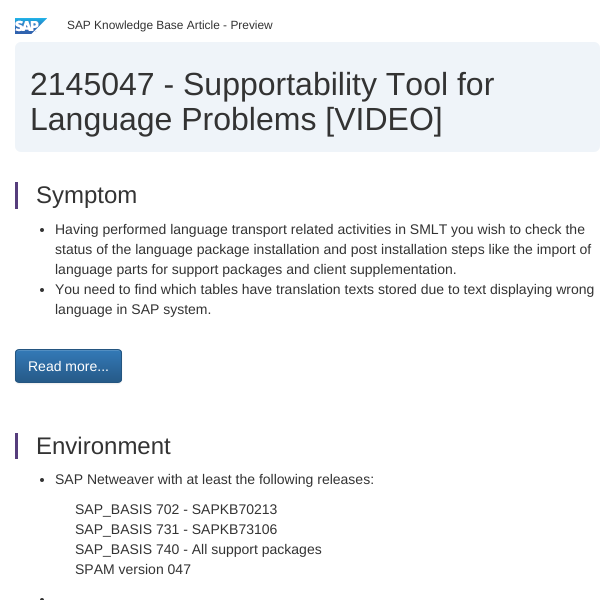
#include <cairo/cairo.h>
#include <math.h>
#include <stddef.h>

static cairo_t *cr;

static void use_color(int r, int g, int b) {
  cairo_set_source_rgb(cr, r / 255.0, g / 255.0, b / 255.0);
}

static void text(double x, double y, const char *s, const char *family, double size, int italic, int bold, int r, int g, int b) {
  cairo_select_font_face(cr, family, italic ? CAIRO_FONT_SLANT_ITALIC : CAIRO_FONT_SLANT_NORMAL,
    bold ? CAIRO_FONT_WEIGHT_BOLD : CAIRO_FONT_WEIGHT_NORMAL);
  cairo_set_font_size(cr, size);
  use_color(r, g, b);
  cairo_move_to(cr, x, y);
  cairo_show_text(cr, s);
}

static void box(double x, double y, double w, double h, int r, int g, int b) {
  use_color(r, g, b);
  cairo_rectangle(cr, x, y, w, h);
  cairo_fill(cr);
}

static void round_rect(double x, double y, double w, double h, double r) {
  cairo_new_sub_path(cr);
  cairo_arc(cr, x + w - r, y + h - r, r, 0, M_PI / 2);
  cairo_arc(cr, x + r, y + h - r, r, M_PI / 2, M_PI);
  cairo_arc(cr, x + r, y + r, r, M_PI, 1.5 * M_PI);
  cairo_arc(cr, x + w - r, y + r, r, 1.5 * M_PI, 2 * M_PI);
  cairo_close_path(cr);
}

static void shadow(double x, double y, double w, double h, double r, double blur, double alpha) {
  cairo_push_group_with_content(cr, CAIRO_CONTENT_ALPHA);
  cairo_set_operator(cr, CAIRO_OPERATOR_SOURCE);
  for (int i = 15; i >= -15 && fmin(w, h) + blur * i / 3 > 0; i -= 2) {
    double e = blur * i / 6;
    cairo_set_source_rgba(cr, 0, 0, 0, alpha * erfc((i - 1) / 8.5) / 2);
    round_rect(x - e, y - e, w + 2 * e, h + 2 * e, fmax(0, fmin(r + e + blur * .6, fmin(w, h) / 2 + e)));
    cairo_fill(cr);
  }
  cairo_pattern_t *soft = cairo_pop_group(cr);
  cairo_mask(cr, soft);
  cairo_pattern_destroy(soft);
}

static void picture(const char *path, double x, double y, double w, double h) {
  cairo_surface_t *image = cairo_image_surface_create_from_png(path);
  cairo_save(cr);
  cairo_set_source_surface(cr, image, x, y);
  cairo_rectangle(cr, x, y, w, h);
  cairo_fill(cr);
  cairo_restore(cr);
  cairo_surface_destroy(image);
}

static void draw(void) {
  cairo_pattern_t *gradient;
  use_color(255, 255, 255);
  cairo_paint(cr);
  picture("img_01.png", 15, 18, 32, 16);
  use_color(239, 244, 249);
  round_rect(15, 42, 585, 110, 6);
  cairo_fill(cr);
  box(15, 182, 3, 27, 86, 61, 124);
  use_color(51, 51, 51);
  cairo_arc(cr, 42, 230, 2, 0, 2 * M_PI);
  cairo_fill(cr);
  cairo_arc(cr, 42, 290, 2, 0, 2 * M_PI);
  cairo_fill(cr);
  use_color(0, 0, 0);
  shadow(15, 350, 107, 34, 4, 0.5, 0.07);
  cairo_save(cr);
  round_rect(15, 349, 107, 34, 4);
  cairo_clip(cr);
  gradient = cairo_pattern_create_linear(69, 350, 69, 382);
  cairo_pattern_add_color_stop_rgba(gradient, 0, 0.2, 0.478, 0.718, 1);
  cairo_pattern_add_color_stop_rgba(gradient, 1, 0.149, 0.353, 0.533, 1);
  cairo_set_source(cr, gradient);
  cairo_pattern_destroy(gradient);
  cairo_rectangle(cr, 15, 350, 107, 32);
  cairo_fill(cr);
  cairo_restore(cr);
  use_color(82, 142, 193);
  cairo_new_path(cr);
  cairo_move_to(cr, 19, 351);
  cairo_line_to(cr, 118, 351);
  cairo_curve_to(cr, 120, 351, 121, 352, 121, 354);
  cairo_curve_to(cr, 121, 346, 104, 350, 102, 350);
  cairo_line_to(cr, 36, 350);
  cairo_curve_to(cr, 33, 350, 16, 346, 16, 354);
  cairo_curve_to(cr, 16, 352, 17, 351, 19, 351);
  cairo_close_path(cr);
  cairo_fill(cr);
  round_rect(15.5, 349.5, 106, 33, 3.5);
  use_color(36, 85, 128);
  cairo_set_line_width(cr, 1);
  cairo_stroke(cr);
  box(15, 433, 3, 26, 86, 61, 124);
  use_color(51, 51, 51);
  cairo_arc(cr, 42, 480, 2, 0, 2 * M_PI);
  cairo_fill(cr);
  cairo_arc(cr, 42, 600, 2, 0, 2 * M_PI);
  cairo_fill(cr);
  text(67, 29, "SAP Knowledge Base Article - Preview", "Liberation Sans", 11.9, 0, 0, 51, 51, 51);
  text(30, 95, "2145047 - Supportability Tool for", "Liberation Sans", 32, 0, 0, 51, 51, 51);
  text(30, 130, "Language Problems [VIDEO]", "Liberation Sans", 32, 0, 0, 51, 51, 51);
  text(36, 203, "Symptom", "Liberation Sans", 24, 0, 0, 51, 51, 51);
  text(55, 234, "Having performed language transport related activities in SMLT you wish to check the", "Liberation Sans", 14, 0, 0, 51, 51, 51);
  text(55, 254, "status of the language package installation and post installation steps like the import of", "Liberation Sans", 14, 0, 0, 51, 51, 51);
  text(55, 274, "language parts for support packages and client supplementation.", "Liberation Sans", 14, 0, 0, 51, 51, 51);
  text(55, 294, "You need to find which tables have translation texts stored due to text displaying wrong", "Liberation Sans", 14, 0, 0, 51, 51, 51);
  text(55, 314, "language in SAP system.", "Liberation Sans", 14, 0, 0, 51, 51, 51);
  text(28, 371, "Read more...", "Liberation Sans", 14, 0, 0, 255, 255, 255);
  text(36, 454, "Environment", "Liberation Sans", 24, 0, 0, 51, 51, 51);
  text(55, 484, "SAP Netweaver with at least the following releases:", "Liberation Sans", 14, 0, 0, 51, 51, 51);
  text(75, 514, "SAP_BASIS 702 - SAPKB70213", "Liberation Sans", 14, 0, 0, 51, 51, 51);
  text(75, 534, "SAP_BASIS 731 - SAPKB73106", "Liberation Sans", 14, 0, 0, 51, 51, 51);
  text(75, 554, "SAP_BASIS 740 - All support packages", "Liberation Sans", 14, 0, 0, 51, 51, 51);
  text(75, 574, "SPAM version 047", "Liberation Sans", 14, 0, 0, 51, 51, 51);
}

int main(void) {
  cairo_surface_t *surface = cairo_image_surface_create(CAIRO_FORMAT_RGB24, 615, 600);
  cr = cairo_create(surface);
  cairo_font_options_t *options = cairo_font_options_create();
  cairo_font_options_set_hint_metrics(options, CAIRO_HINT_METRICS_OFF);
  cairo_font_options_set_hint_style(options, CAIRO_HINT_STYLE_NONE);
  cairo_set_font_options(cr, options);
  cairo_set_miter_limit(cr, 4);
  draw();
  cairo_surface_write_to_png(surface, "out.png");
  cairo_font_options_destroy(options);
  cairo_destroy(cr);
  cairo_surface_destroy(surface);
  return 0;
}
